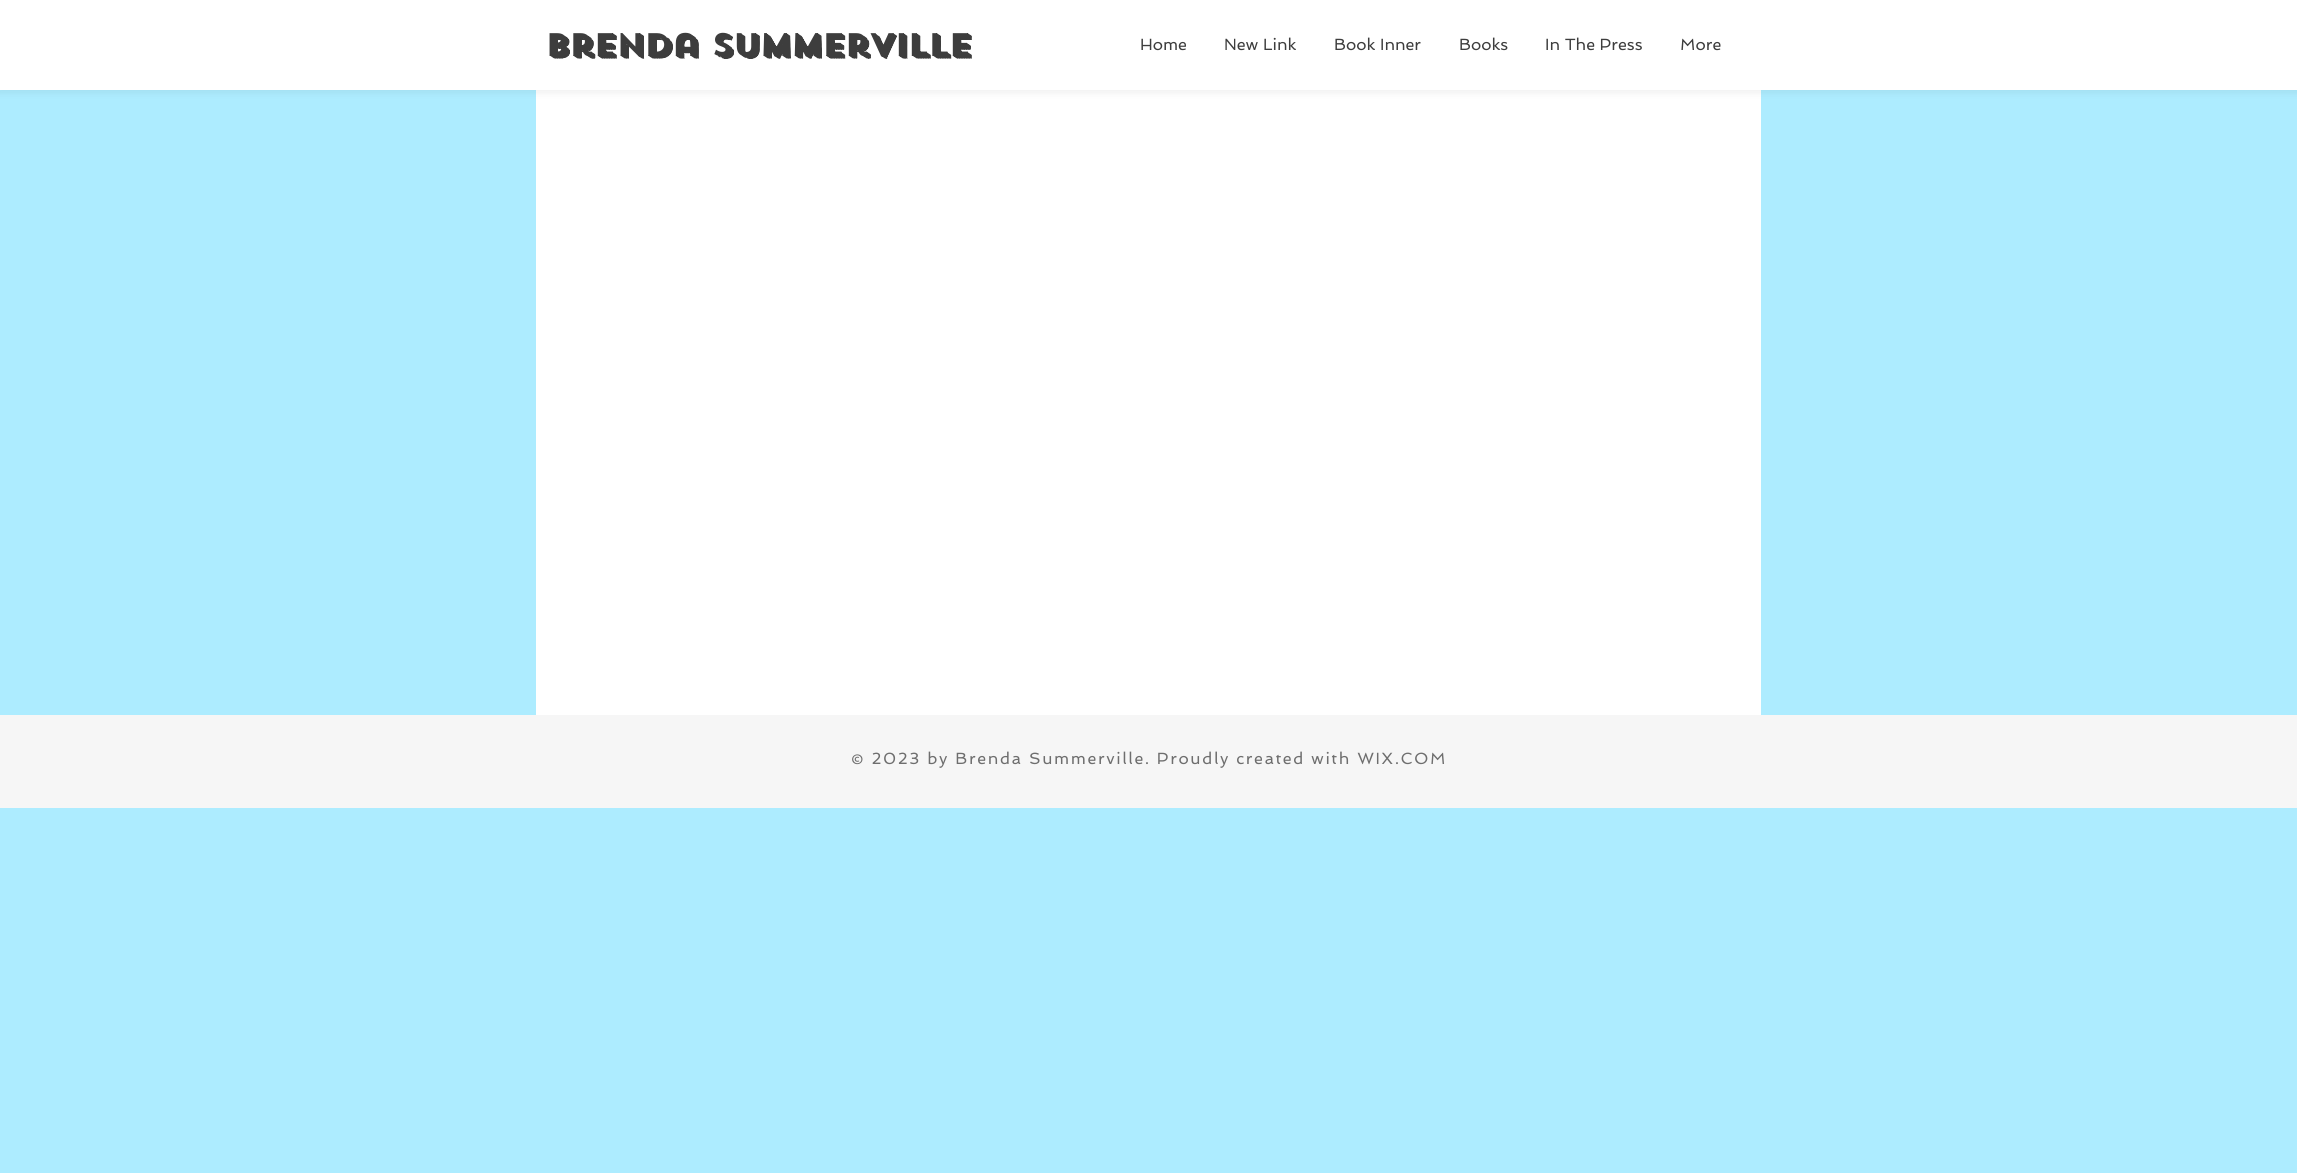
#include <cairo/cairo.h>
#include <math.h>
#include <stddef.h>

static cairo_t *cr;

static void use_color(int r, int g, int b) {
  cairo_set_source_rgb(cr, r / 255.0, g / 255.0, b / 255.0);
}

static void text(double x, double y, const char *s, const char *family, double size, int italic, int bold, int r, int g, int b) {
  cairo_select_font_face(cr, family, italic ? CAIRO_FONT_SLANT_ITALIC : CAIRO_FONT_SLANT_NORMAL,
    bold ? CAIRO_FONT_WEIGHT_BOLD : CAIRO_FONT_WEIGHT_NORMAL);
  cairo_set_font_size(cr, size);
  use_color(r, g, b);
  cairo_move_to(cr, x, y);
  cairo_show_text(cr, s);
}

static void spaced_text(double x, double y, const char *s, double letter, double word) {
  cairo_move_to(cr, x, y);
  while (*s) {
    char ch[5] = {0};
    int n = 0;
    do ch[n++] = *s++; while ((*s & 0xC0) == 0x80);
    cairo_show_text(cr, ch);
    cairo_rel_move_to(cr, letter + word * (*ch == ' '), 0);
  }
}

static void box(double x, double y, double w, double h, int r, int g, int b) {
  use_color(r, g, b);
  cairo_rectangle(cr, x, y, w, h);
  cairo_fill(cr);
}

static void round_rect(double x, double y, double w, double h, double r) {
  cairo_new_sub_path(cr);
  cairo_arc(cr, x + w - r, y + h - r, r, 0, M_PI / 2);
  cairo_arc(cr, x + r, y + h - r, r, M_PI / 2, M_PI);
  cairo_arc(cr, x + r, y + r, r, M_PI, 1.5 * M_PI);
  cairo_arc(cr, x + w - r, y + r, r, 1.5 * M_PI, 2 * M_PI);
  cairo_close_path(cr);
}

static void shadow(double x, double y, double w, double h, double r, double blur, double alpha) {
  cairo_push_group_with_content(cr, CAIRO_CONTENT_ALPHA);
  cairo_set_operator(cr, CAIRO_OPERATOR_SOURCE);
  for (int i = 15; i >= -15 && fmin(w, h) + blur * i / 3 > 0; i -= 2) {
    double e = blur * i / 6;
    cairo_set_source_rgba(cr, 0, 0, 0, alpha * erfc((i - 1) / 8.5) / 2);
    round_rect(x - e, y - e, w + 2 * e, h + 2 * e, fmax(0, fmin(r + e + blur * .6, fmin(w, h) / 2 + e)));
    cairo_fill(cr);
  }
  cairo_pattern_t *soft = cairo_pop_group(cr);
  cairo_mask(cr, soft);
  cairo_pattern_destroy(soft);
}

static void draw(void) {
  use_color(173, 236, 255);
  cairo_paint(cr);
  box(536, 90, 1225, 625, 255, 255, 255);
  use_color(0, 0, 0);
  shadow(-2, -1, 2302, 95, 0, 3, 0.05);
  box(0, 0, 2297, 90, 255, 255, 255);
  box(0, 715, 2297, 93, 246, 246, 246);
  text(545, 56, "Brenda Summerville", "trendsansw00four", 31.25, 0, 1, 61, 61, 61);
  text(1140, 50, "Home", "Spinnaker", 16.25, 0, 0, 61, 61, 61);
  text(1224, 50, "New Link", "Spinnaker", 16.25, 0, 0, 61, 61, 61);
  text(1334, 50, "Book Inner", "Spinnaker", 16.25, 0, 0, 61, 61, 61);
  text(1459, 50, "Books", "Spinnaker", 16.25, 0, 0, 61, 61, 61);
  text(1545, 50, "In The Press", "Spinnaker", 16.25, 0, 0, 61, 61, 61);
  text(1680, 50, "More", "Spinnaker", 16.25, 0, 0, 61, 61, 61);
  use_color(110, 110, 110);
  spaced_text(851, 764, "© 2023 by Brenda Summerville. Proudly created with WIX.COM", 1.62, 0);
}

int main(void) {
  cairo_surface_t *surface = cairo_image_surface_create(CAIRO_FORMAT_RGB24, 2297, 1173);
  cr = cairo_create(surface);
  cairo_font_options_t *options = cairo_font_options_create();
  cairo_font_options_set_hint_metrics(options, CAIRO_HINT_METRICS_OFF);
  cairo_font_options_set_hint_style(options, CAIRO_HINT_STYLE_NONE);
  cairo_set_font_options(cr, options);
  cairo_set_miter_limit(cr, 4);
  draw();
  cairo_surface_write_to_png(surface, "out.png");
  cairo_font_options_destroy(options);
  cairo_destroy(cr);
  cairo_surface_destroy(surface);
  return 0;
}
